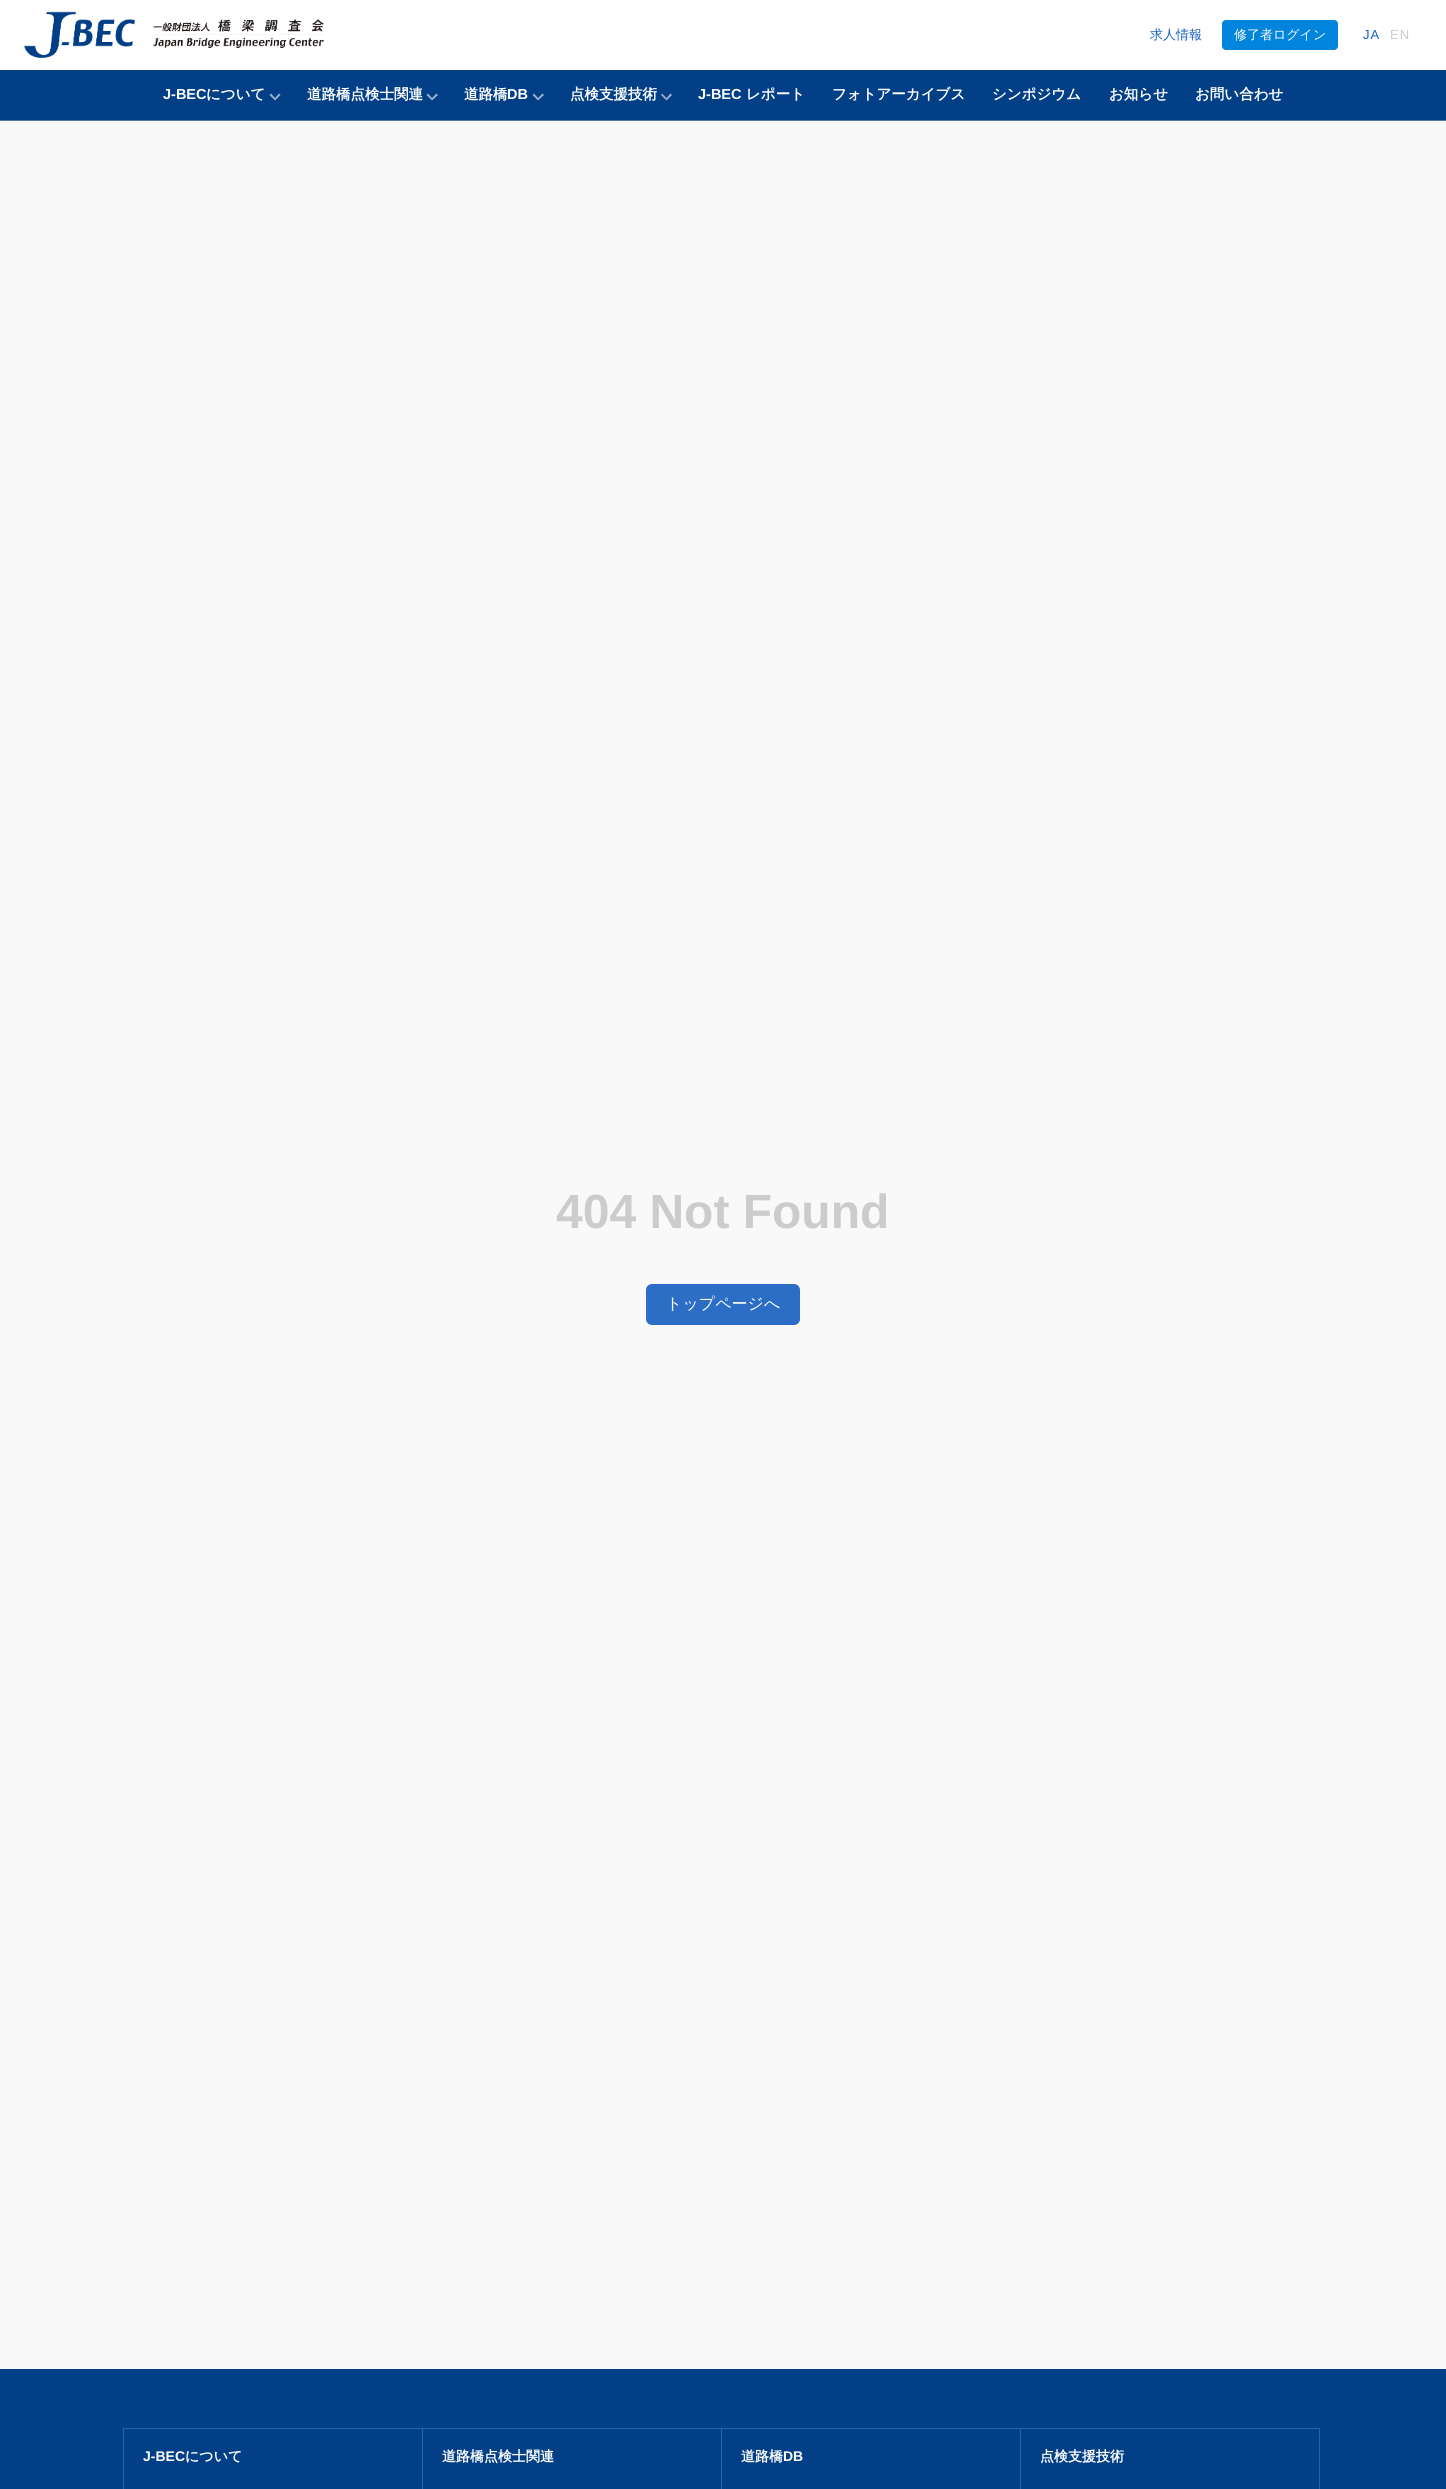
#include <cairo/cairo.h>
#include <math.h>
#include <stddef.h>

static cairo_t *cr;

static void use_color(int r, int g, int b) {
  cairo_set_source_rgb(cr, r / 255.0, g / 255.0, b / 255.0);
}

static void text(double x, double y, const char *s, const char *family, double size, int italic, int bold, int r, int g, int b) {
  cairo_select_font_face(cr, family, italic ? CAIRO_FONT_SLANT_ITALIC : CAIRO_FONT_SLANT_NORMAL,
    bold ? CAIRO_FONT_WEIGHT_BOLD : CAIRO_FONT_WEIGHT_NORMAL);
  cairo_set_font_size(cr, size);
  use_color(r, g, b);
  cairo_move_to(cr, x, y);
  cairo_show_text(cr, s);
}

static void spaced_text(double x, double y, const char *s, double letter, double word) {
  cairo_move_to(cr, x, y);
  while (*s) {
    char ch[5] = {0};
    int n = 0;
    do ch[n++] = *s++; while ((*s & 0xC0) == 0x80);
    cairo_show_text(cr, ch);
    cairo_rel_move_to(cr, letter + word * (*ch == ' '), 0);
  }
}

static void box(double x, double y, double w, double h, int r, int g, int b) {
  use_color(r, g, b);
  cairo_rectangle(cr, x, y, w, h);
  cairo_fill(cr);
}

static void round_rect(double x, double y, double w, double h, double r) {
  cairo_new_sub_path(cr);
  cairo_arc(cr, x + w - r, y + h - r, r, 0, M_PI / 2);
  cairo_arc(cr, x + r, y + h - r, r, M_PI / 2, M_PI);
  cairo_arc(cr, x + r, y + r, r, M_PI, 1.5 * M_PI);
  cairo_arc(cr, x + w - r, y + r, r, 1.5 * M_PI, 2 * M_PI);
  cairo_close_path(cr);
}

static void picture(const char *path, double x, double y, double w, double h) {
  cairo_surface_t *image = cairo_image_surface_create_from_png(path);
  cairo_save(cr);
  cairo_set_source_surface(cr, image, x, y);
  cairo_rectangle(cr, x, y, w, h);
  cairo_fill(cr);
  cairo_restore(cr);
  cairo_surface_destroy(image);
}

static void draw(void) {
  use_color(249, 249, 249);
  cairo_paint(cr);
  box(0, 0, 1446, 70, 255, 255, 255);
  picture("img_01.png", 24, 11, 300, 47);
  use_color(0, 132, 220);
  round_rect(1222, 20, 116, 30, 4);
  cairo_fill(cr);
  box(0, 70, 1446, 50, 2, 63, 134);
  box(0, 120, 1446, 1, 78, 121, 170);
  use_color(154, 178, 207);
  cairo_new_path(cr);
  cairo_move_to(cr, 280.5, 95);
  cairo_line_to(cr, 275, 100.5);
  cairo_line_to(cr, 275, 98);
  cairo_line_to(cr, 279, 93.5);
  cairo_close_path(cr);
  cairo_move_to(cr, 275, 100.5);
  cairo_line_to(cr, 269.5, 95);
  cairo_line_to(cr, 271, 93.5);
  cairo_line_to(cr, 275, 98);
  cairo_close_path(cr);
  cairo_fill(cr);
  cairo_new_path(cr);
  cairo_move_to(cr, 438, 95);
  cairo_line_to(cr, 432, 100.5);
  cairo_line_to(cr, 432, 98);
  cairo_line_to(cr, 436.5, 93.5);
  cairo_close_path(cr);
  cairo_move_to(cr, 432, 100.5);
  cairo_line_to(cr, 426.5, 95);
  cairo_line_to(cr, 428, 93.5);
  cairo_line_to(cr, 432, 98);
  cairo_close_path(cr);
  cairo_fill(cr);
  cairo_new_path(cr);
  cairo_move_to(cr, 544, 95);
  cairo_line_to(cr, 538, 100.5);
  cairo_line_to(cr, 538, 98);
  cairo_line_to(cr, 542.5, 93.5);
  cairo_close_path(cr);
  cairo_move_to(cr, 538, 100.5);
  cairo_line_to(cr, 532.5, 95);
  cairo_line_to(cr, 534, 93.5);
  cairo_line_to(cr, 538, 98);
  cairo_close_path(cr);
  cairo_fill(cr);
  cairo_new_path(cr);
  cairo_move_to(cr, 672, 95);
  cairo_line_to(cr, 666.5, 100.5);
  cairo_line_to(cr, 666.5, 98);
  cairo_line_to(cr, 670.5, 93.5);
  cairo_close_path(cr);
  cairo_fill(cr);
  cairo_set_source_rgba(cr, 1, 1, 1, 0.6);
  cairo_new_path(cr);
  cairo_move_to(cr, 666.5, 100.5);
  cairo_line_to(cr, 661, 95);
  cairo_line_to(cr, 662, 93.5);
  cairo_line_to(cr, 666.5, 98);
  cairo_close_path(cr);
  cairo_fill(cr);
  use_color(44, 109, 197);
  round_rect(646, 1284, 154, 41, 6);
  cairo_fill(cr);
  box(0, 2369, 1446, 120, 2, 63, 134);
  cairo_rectangle(cr, 123.5, 2428.5, 299, 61);
  use_color(38, 99, 160);
  cairo_set_line_width(cr, 1);
  cairo_stroke(cr);
  cairo_rectangle(cr, 422.5, 2428.5, 299, 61);
  cairo_stroke(cr);
  cairo_rectangle(cr, 721.5, 2428.5, 299, 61);
  cairo_stroke(cr);
  cairo_rectangle(cr, 1020.5, 2428.5, 299, 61);
  cairo_stroke(cr);
  text(1150, 39, "求人情報", "WenQuanYi Zen Hei Medium", 13, 0, 0, 21, 93, 191);
  text(1234, 39, "修了者ログイン", "WenQuanYi Zen Hei Medium", 13, 0, 0, 254, 254, 254);
  cairo_select_font_face(cr, "Liberation Sans", CAIRO_FONT_SLANT_NORMAL, CAIRO_FONT_WEIGHT_NORMAL);
  use_color(21, 93, 191);
  spaced_text(1363, 39, "JA", 1, 0);
  use_color(204, 204, 204);
  spaced_text(1390, 39, "EN", 1, 0);
  text(163, 99, "J-BEC", "Liberation Sans", 14.5, 0, 1, 254, 254, 254);
  text(206, 99, "について", "WenQuanYi Zen Hei", 14.5, 0, 1, 254, 254, 254);
  text(307, 99, "道路橋点検士関連", "WenQuanYi Zen Hei", 14.5, 0, 1, 254, 254, 254);
  text(464, 99, "道路橋", "WenQuanYi Zen Hei", 14.5, 0, 1, 254, 254, 254);
  text(507, 99, "DB", "Liberation Sans", 14.5, 0, 1, 254, 254, 254);
  text(570, 99, "点検支援技術", "WenQuanYi Zen Hei", 14.5, 0, 1, 254, 254, 254);
  text(698, 99, "J-BEC", "Liberation Sans", 14.5, 0, 1, 254, 254, 254);
  text(746, 99, "レポート", "WenQuanYi Zen Hei", 14.5, 0, 1, 254, 254, 254);
  text(832, 99, "フォトアーカイブス", "WenQuanYi Zen Hei", 14.5, 0, 1, 254, 254, 254);
  text(992, 99, "シンポジウム", "WenQuanYi Zen Hei", 14.5, 0, 1, 254, 254, 254);
  text(1109, 99, "お知らせ", "WenQuanYi Zen Hei", 14.5, 0, 1, 254, 254, 254);
  text(1195, 99, "お問い合わせ", "WenQuanYi Zen Hei", 14.5, 0, 1, 254, 254, 254);
  text(556, 1228, "404 Not Found", "Liberation Sans", 48, 0, 1, 204, 204, 204);
  text(666, 1309, "トップページへ", "WenQuanYi Zen Hei Medium", 16, 0, 0, 254, 254, 254);
  text(143, 2461, "J-BEC", "Liberation Sans", 14, 0, 1, 254, 254, 254);
  text(185, 2461, "について", "WenQuanYi Zen Hei", 14, 0, 1, 254, 254, 254);
  text(442, 2461, "道路橋点検士関連", "WenQuanYi Zen Hei", 14, 0, 1, 254, 254, 254);
  text(741, 2461, "道路橋", "WenQuanYi Zen Hei", 14, 0, 1, 254, 254, 254);
  text(783, 2461, "DB", "Liberation Sans", 14, 0, 1, 254, 254, 254);
  text(1040, 2461, "点検支援技術", "WenQuanYi Zen Hei", 14, 0, 1, 254, 254, 254);
}

int main(void) {
  cairo_surface_t *surface = cairo_image_surface_create(CAIRO_FORMAT_RGB24, 1446, 2489);
  cr = cairo_create(surface);
  cairo_font_options_t *options = cairo_font_options_create();
  cairo_font_options_set_hint_metrics(options, CAIRO_HINT_METRICS_OFF);
  cairo_font_options_set_hint_style(options, CAIRO_HINT_STYLE_NONE);
  cairo_set_font_options(cr, options);
  cairo_set_miter_limit(cr, 4);
  draw();
  cairo_surface_write_to_png(surface, "out.png");
  cairo_font_options_destroy(options);
  cairo_destroy(cr);
  cairo_surface_destroy(surface);
  return 0;
}
